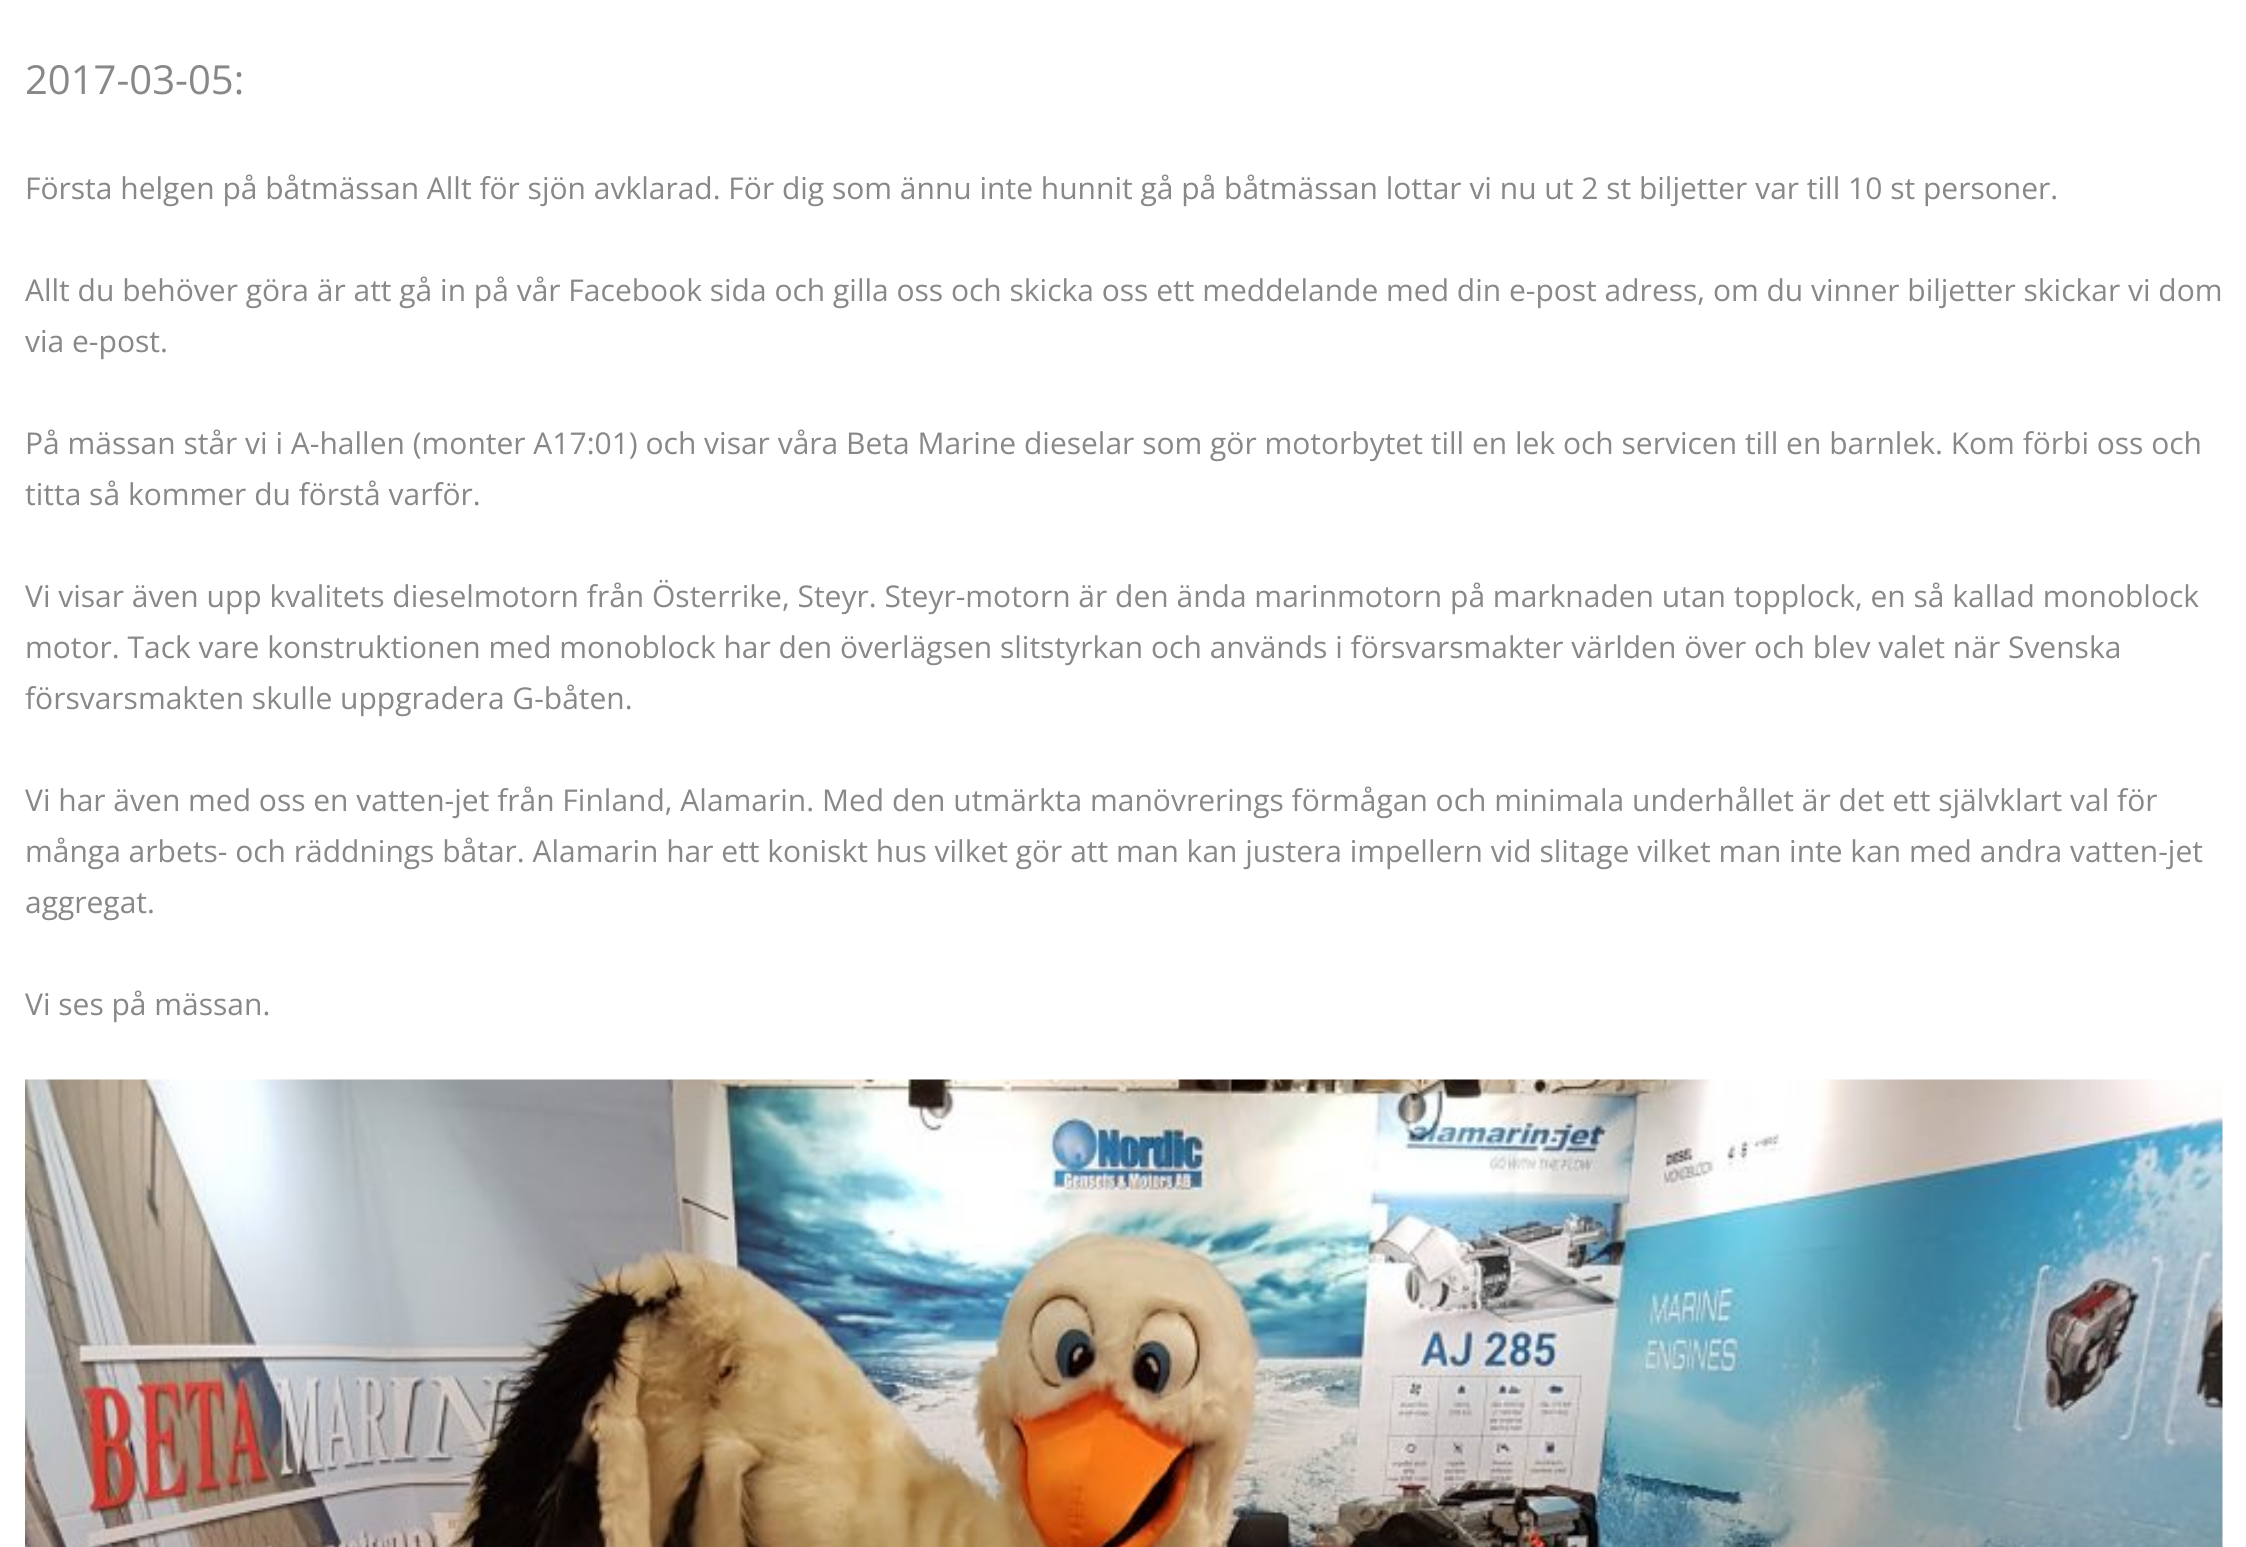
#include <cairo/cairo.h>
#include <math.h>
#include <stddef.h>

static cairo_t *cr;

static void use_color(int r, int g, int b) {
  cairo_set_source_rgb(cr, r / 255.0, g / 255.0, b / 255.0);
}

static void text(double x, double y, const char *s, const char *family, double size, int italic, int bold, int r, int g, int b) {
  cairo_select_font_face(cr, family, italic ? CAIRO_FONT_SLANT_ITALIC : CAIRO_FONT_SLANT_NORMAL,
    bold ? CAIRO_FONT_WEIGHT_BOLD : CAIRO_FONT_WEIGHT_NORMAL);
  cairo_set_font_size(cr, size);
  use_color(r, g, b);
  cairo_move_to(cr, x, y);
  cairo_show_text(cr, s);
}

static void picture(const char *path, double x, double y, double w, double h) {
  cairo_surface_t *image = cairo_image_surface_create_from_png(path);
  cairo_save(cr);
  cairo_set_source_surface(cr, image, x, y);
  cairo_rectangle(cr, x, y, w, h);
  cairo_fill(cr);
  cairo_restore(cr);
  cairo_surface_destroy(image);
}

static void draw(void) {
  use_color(255, 255, 255);
  cairo_paint(cr);
  picture("img_01.png", 25, 1079, 2198, 468);
  text(25, 94, "2017-03-05:", "Open Sans", 40, 0, 0, 136, 136, 136);
  text(25, 199, "Första helgen på båtmässan Allt för sjön avklarad. För dig som ännu inte hunnit gå på båtmässan lottar vi nu ut 2 st biljetter var till 10 st personer.", "Open Sans", 30, 0, 0, 136, 136, 136);
  text(25, 301, "Allt du behöver göra är att gå in på vår Facebook sida och gilla oss och skicka oss ett meddelande med din e-post adress, om du vinner biljetter skickar vi dom", "Open Sans", 30, 0, 0, 136, 136, 136);
  text(25, 352, "via e-post.", "Open Sans", 30, 0, 0, 136, 136, 136);
  text(25, 454, "På mässan står vi i A-hallen (monter A17:01) och visar våra Beta Marine dieselar som gör motorbytet till en lek och servicen till en barnlek. Kom förbi oss och", "Open Sans", 30, 0, 0, 136, 136, 136);
  text(25, 505, "titta så kommer du förstå varför.", "Open Sans", 30, 0, 0, 136, 136, 136);
  text(25, 607, "Vi visar även upp kvalitets dieselmotorn från Österrike, Steyr. Steyr-motorn är den ända marinmotorn på marknaden utan topplock, en så kallad monoblock", "Open Sans", 30, 0, 0, 136, 136, 136);
  text(25, 658, "motor. Tack vare konstruktionen med monoblock har den överlägsen slitstyrkan och används i försvarsmakter världen över och blev valet när Svenska", "Open Sans", 30, 0, 0, 136, 136, 136);
  text(25, 709, "försvarsmakten skulle uppgradera G-båten.", "Open Sans", 30, 0, 0, 136, 136, 136);
  text(25, 811, "Vi har även med oss en vatten-jet från Finland, Alamarin. Med den utmärkta manövrerings förmågan och minimala underhållet är det ett självklart val för", "Open Sans", 30, 0, 0, 136, 136, 136);
  text(25, 862, "många arbets- och räddnings båtar. Alamarin har ett koniskt hus vilket gör att man kan justera impellern vid slitage vilket man inte kan med andra vatten-jet", "Open Sans", 30, 0, 0, 136, 136, 136);
  text(25, 913, "aggregat.", "Open Sans", 30, 0, 0, 136, 136, 136);
  text(25, 1015, "Vi ses på mässan.", "Open Sans", 30, 0, 0, 136, 136, 136);
}

int main(void) {
  cairo_surface_t *surface = cairo_image_surface_create(CAIRO_FORMAT_RGB24, 2246, 1547);
  cr = cairo_create(surface);
  cairo_font_options_t *options = cairo_font_options_create();
  cairo_font_options_set_hint_metrics(options, CAIRO_HINT_METRICS_OFF);
  cairo_font_options_set_hint_style(options, CAIRO_HINT_STYLE_NONE);
  cairo_set_font_options(cr, options);
  cairo_set_miter_limit(cr, 4);
  draw();
  cairo_surface_write_to_png(surface, "out.png");
  cairo_font_options_destroy(options);
  cairo_destroy(cr);
  cairo_surface_destroy(surface);
  return 0;
}
